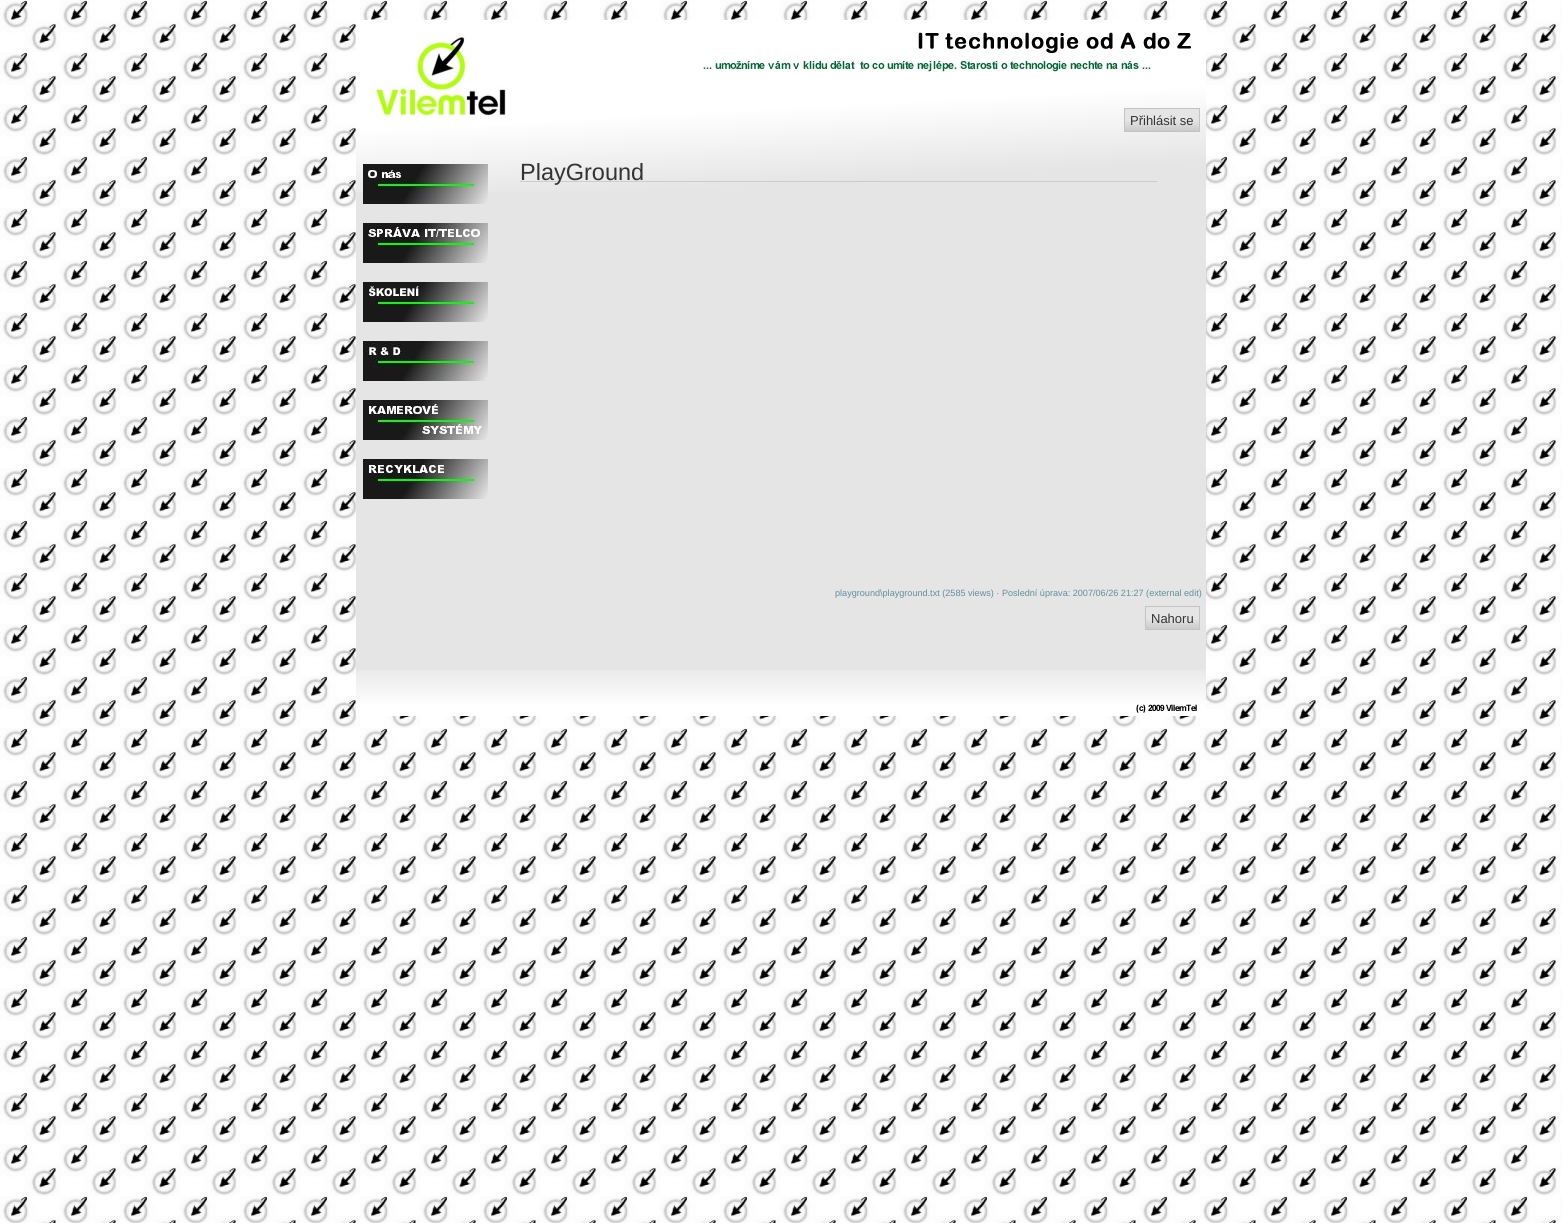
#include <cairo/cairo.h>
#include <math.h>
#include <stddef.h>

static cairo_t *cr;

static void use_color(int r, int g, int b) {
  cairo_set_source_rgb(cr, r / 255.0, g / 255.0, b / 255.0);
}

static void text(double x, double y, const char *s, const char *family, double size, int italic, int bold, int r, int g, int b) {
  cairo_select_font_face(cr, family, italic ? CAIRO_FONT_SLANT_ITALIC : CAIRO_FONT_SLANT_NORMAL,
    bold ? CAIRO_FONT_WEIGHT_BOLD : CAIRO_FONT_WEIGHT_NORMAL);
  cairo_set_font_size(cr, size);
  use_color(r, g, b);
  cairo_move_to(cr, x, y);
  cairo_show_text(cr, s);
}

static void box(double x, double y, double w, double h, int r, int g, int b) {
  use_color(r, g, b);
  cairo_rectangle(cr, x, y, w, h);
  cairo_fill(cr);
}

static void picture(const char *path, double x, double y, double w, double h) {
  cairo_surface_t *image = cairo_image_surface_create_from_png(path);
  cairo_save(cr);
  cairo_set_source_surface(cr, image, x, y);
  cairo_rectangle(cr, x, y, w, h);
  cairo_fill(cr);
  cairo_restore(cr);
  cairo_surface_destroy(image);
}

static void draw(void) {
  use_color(255, 255, 255);
  cairo_paint(cr);
  picture("img_01.png", 0, 0, 1562, 1223);
  box(356, 192, 850, 478, 229, 229, 229);
  picture("img_02.png", 356, 20, 850, 172);
  box(1125, 109, 74, 21, 229, 229, 229);
  picture("img_03.png", 1125, 121, 74, 10);
  cairo_rectangle(cr, 1124.5, 108.5, 75, 23);
  use_color(195, 195, 195);
  cairo_set_line_width(cr, 1);
  cairo_stroke(cr);
  picture("img_04.png", 363, 164, 125, 40);
  picture("img_05.png", 363, 223, 125, 40);
  picture("img_06.png", 363, 282, 125, 40);
  picture("img_07.png", 363, 341, 125, 40);
  picture("img_08.png", 363, 400, 125, 40);
  picture("img_09.png", 363, 459, 125, 40);
  box(520, 181, 637, 1, 204, 204, 204);
  picture("img_10.png", 1146, 620, 53, 9);
  cairo_rectangle(cr, 1145.5, 606.5, 54, 23);
  use_color(195, 195, 195);
  cairo_stroke(cr);
  picture("img_11.png", 356, 670, 850, 46);
  text(1130, 125, "Přihlásit se", "Liberation Sans", 13, 0, 0, 51, 51, 51);
  text(520, 180, "PlayGround", "Liberation Sans", 23.5, 0, 0, 51, 51, 51);
  text(835, 596, "playground\\playground.txt (2585 views) · Poslední úprava: 2007/06/26 21:27 (external edit)", "Liberation Sans", 9.1, 0, 0, 99, 140, 156);
  text(1151, 623, "Nahoru", "Liberation Sans", 13, 0, 0, 51, 51, 51);
}

int main(void) {
  cairo_surface_t *surface = cairo_image_surface_create(CAIRO_FORMAT_RGB24, 1562, 1223);
  cr = cairo_create(surface);
  cairo_font_options_t *options = cairo_font_options_create();
  cairo_font_options_set_hint_metrics(options, CAIRO_HINT_METRICS_OFF);
  cairo_font_options_set_hint_style(options, CAIRO_HINT_STYLE_NONE);
  cairo_set_font_options(cr, options);
  cairo_set_miter_limit(cr, 4);
  draw();
  cairo_surface_write_to_png(surface, "out.png");
  cairo_font_options_destroy(options);
  cairo_destroy(cr);
  cairo_surface_destroy(surface);
  return 0;
}
